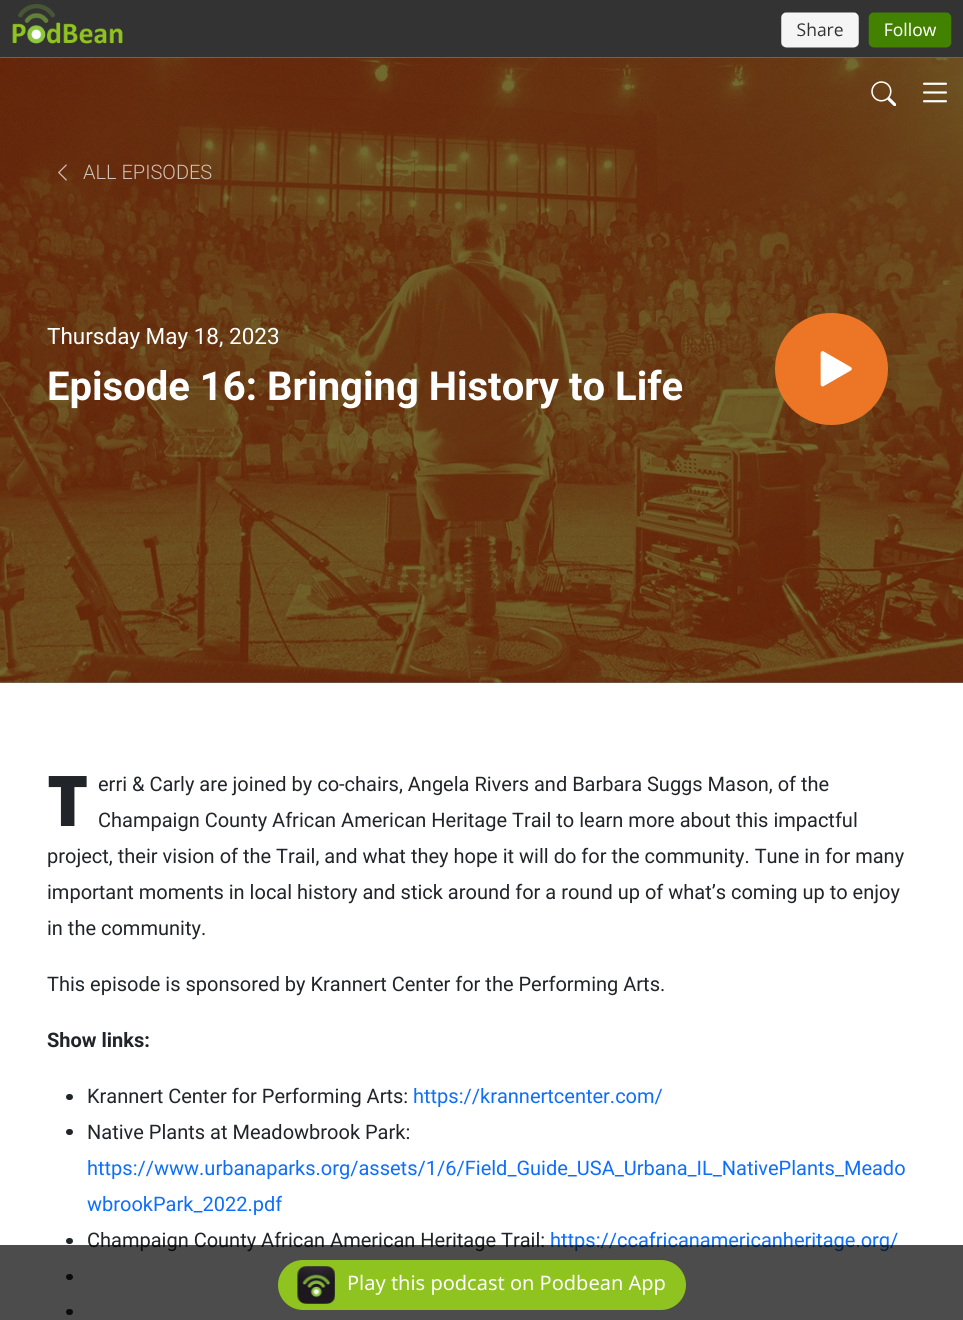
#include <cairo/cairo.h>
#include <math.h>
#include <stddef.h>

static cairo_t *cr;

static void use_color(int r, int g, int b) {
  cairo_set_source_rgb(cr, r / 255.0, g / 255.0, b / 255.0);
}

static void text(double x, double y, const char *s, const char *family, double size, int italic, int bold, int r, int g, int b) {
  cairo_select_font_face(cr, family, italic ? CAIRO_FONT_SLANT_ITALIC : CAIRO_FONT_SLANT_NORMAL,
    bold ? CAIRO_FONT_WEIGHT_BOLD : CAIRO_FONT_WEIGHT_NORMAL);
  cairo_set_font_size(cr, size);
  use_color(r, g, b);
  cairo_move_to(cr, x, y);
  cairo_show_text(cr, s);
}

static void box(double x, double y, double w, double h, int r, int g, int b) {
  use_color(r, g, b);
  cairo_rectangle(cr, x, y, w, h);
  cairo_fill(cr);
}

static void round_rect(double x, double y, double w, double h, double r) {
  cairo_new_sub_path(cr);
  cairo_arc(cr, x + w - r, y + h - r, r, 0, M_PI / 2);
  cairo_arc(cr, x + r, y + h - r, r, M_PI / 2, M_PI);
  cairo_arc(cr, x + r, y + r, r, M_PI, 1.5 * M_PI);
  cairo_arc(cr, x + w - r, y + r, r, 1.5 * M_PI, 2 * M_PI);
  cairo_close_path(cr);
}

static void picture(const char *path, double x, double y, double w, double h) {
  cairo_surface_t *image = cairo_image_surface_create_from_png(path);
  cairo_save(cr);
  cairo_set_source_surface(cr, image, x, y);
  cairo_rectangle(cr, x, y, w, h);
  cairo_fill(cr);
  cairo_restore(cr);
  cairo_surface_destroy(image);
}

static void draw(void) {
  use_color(255, 255, 255);
  cairo_paint(cr);
  box(0, 682, 963, 1, 115, 115, 115);
  box(0, 0, 963, 4, 51, 51, 51);
  picture("img_01.png", 0, 4, 963, 54);
  picture("img_04.png", 0, 58, 963, 625);
  picture("img_02.png", 871, 81, 25, 25);
  picture("img_03.png", 923, 82, 24, 21);
  picture("img_05.png", 58, 164, 9, 17);
  use_color(236, 118, 37);
  round_rect(775, 313, 113, 112, 56);
  cairo_fill(cr);
  picture("img_06.png", 820, 351, 32, 36);
  use_color(33, 37, 41);
  round_rect(66, 1094, 7, 6, 3);
  cairo_fill(cr);
  round_rect(66, 1129, 7, 6, 3);
  cairo_fill(cr);
  round_rect(66, 1238, 7, 6, 3);
  cairo_fill(cr);
  round_rect(66, 1274, 7, 6, 3);
  cairo_fill(cr);
  round_rect(66, 1309, 7, 6, 3);
  cairo_fill(cr);
  text(83, 179, "ALL EPISODES", "Roboto Light", 20, 0, 0, 209, 193, 183);
  text(47, 344, "Thursday May 18, 2023", "Roboto", 22.5, 0, 0, 255, 255, 255);
  text(47, 400, "Episode 16: Bringing History to Life", "Roboto", 40, 0, 1, 255, 255, 255);
  text(98, 791, "erri & Carly are joined by co-chairs, Angela Rivers and Barbara Suggs Mason, of the", "Roboto", 20, 0, 0, 33, 37, 41);
  text(98, 827, "Champaign County African American Heritage Trail to learn more about this impactful", "Roboto", 20, 0, 0, 33, 37, 41);
  text(47, 863, "project, their vision of the Trail, and what they hope it will do for the community. Tune in for many", "Roboto", 20, 0, 0, 33, 37, 41);
  text(47, 899, "important moments in local history and stick around for a round up of what’s coming up to enjoy", "Roboto", 20, 0, 0, 33, 37, 41);
  text(47, 935, "in the community.", "Roboto", 20, 0, 0, 33, 37, 41);
  text(47, 826, "T", "Noto Sans Black", 70, 0, 0, 33, 37, 41);
  text(47, 991, "This episode is sponsored by Krannert Center for the Performing Arts.", "Roboto", 20, 0, 0, 33, 37, 41);
  text(47, 1047, "Show links:", "Roboto", 20, 0, 1, 33, 37, 41);
  text(87, 1103, "Krannert Center for Performing Arts:", "Roboto", 20, 0, 0, 33, 37, 41);
  text(413, 1103, "https://krannertcenter.com/", "Roboto", 20, 0, 0, 13, 110, 253);
  text(87, 1139, "Native Plants at Meadowbrook Park:", "Roboto", 20, 0, 0, 33, 37, 41);
  text(87, 1175, "https://www.urbanaparks.org/assets/1/6/Field_Guide_USA_Urbana_IL_NativePlants_Meado", "Roboto", 20, 0, 0, 13, 110, 253);
  text(87, 1211, "wbrookPark_2022.pdf", "Roboto", 20, 0, 0, 13, 110, 253);
  text(87, 1247, "Champaign County African American Heritage Trail:", "Roboto", 20, 0, 0, 33, 37, 41);
  text(550, 1247, "https://ccafricanamericanheritage.org/", "Roboto", 20, 0, 0, 13, 110, 253);
  cairo_set_source_rgba(cr, 0, 0, 0, 0.7);
  cairo_rectangle(cr, 0, 1245, 963, 75);
  cairo_fill(cr);
  use_color(143, 195, 31);
  round_rect(278, 1260, 408, 50, 25);
  cairo_fill(cr);
  picture("img_07.png", 297, 1266, 38, 38);
  text(347, 1290, "Play this podcast on Podbean App", "Noto Sans", 20, 0, 0, 255, 255, 255);
}

int main(void) {
  cairo_surface_t *surface = cairo_image_surface_create(CAIRO_FORMAT_RGB24, 963, 1320);
  cr = cairo_create(surface);
  cairo_font_options_t *options = cairo_font_options_create();
  cairo_font_options_set_hint_metrics(options, CAIRO_HINT_METRICS_OFF);
  cairo_font_options_set_hint_style(options, CAIRO_HINT_STYLE_NONE);
  cairo_set_font_options(cr, options);
  cairo_set_miter_limit(cr, 4);
  draw();
  cairo_surface_write_to_png(surface, "out.png");
  cairo_font_options_destroy(options);
  cairo_destroy(cr);
  cairo_surface_destroy(surface);
  return 0;
}
